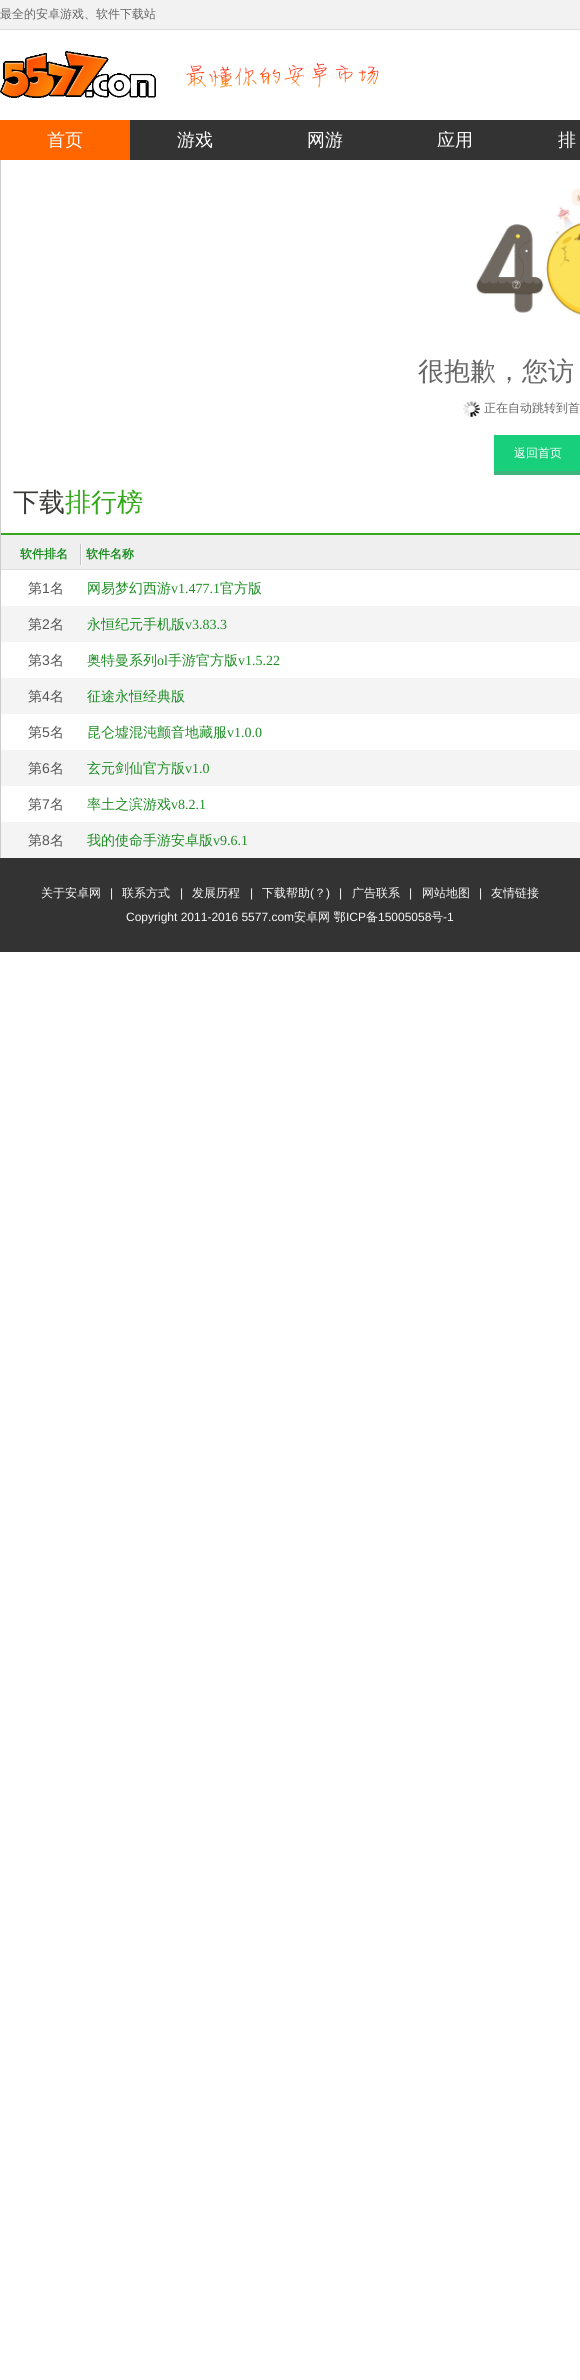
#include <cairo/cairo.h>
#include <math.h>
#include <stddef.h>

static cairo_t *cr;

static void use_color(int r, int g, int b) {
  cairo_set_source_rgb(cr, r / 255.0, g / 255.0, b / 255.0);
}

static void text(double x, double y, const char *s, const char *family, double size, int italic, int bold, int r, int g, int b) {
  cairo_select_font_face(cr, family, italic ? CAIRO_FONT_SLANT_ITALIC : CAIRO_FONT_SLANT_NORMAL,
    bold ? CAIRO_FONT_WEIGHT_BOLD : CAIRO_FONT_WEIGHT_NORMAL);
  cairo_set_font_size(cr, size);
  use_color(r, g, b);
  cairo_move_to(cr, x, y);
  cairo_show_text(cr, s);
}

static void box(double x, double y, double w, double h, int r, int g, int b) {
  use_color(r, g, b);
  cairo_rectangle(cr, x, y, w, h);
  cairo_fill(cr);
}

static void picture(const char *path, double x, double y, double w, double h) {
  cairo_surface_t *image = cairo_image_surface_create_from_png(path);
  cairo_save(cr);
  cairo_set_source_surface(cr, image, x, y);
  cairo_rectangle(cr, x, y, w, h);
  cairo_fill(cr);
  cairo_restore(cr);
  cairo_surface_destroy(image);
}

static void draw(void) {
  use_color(255, 255, 255);
  cairo_paint(cr);
  box(0, 0, 580, 29, 242, 242, 242);
  box(0, 29, 580, 1, 220, 220, 220);
  picture("img_01.png", 0, 51, 156, 47);
  picture("img_02.png", 186, 63, 193, 25);
  box(130, 120, 450, 40, 51, 51, 51);
  box(0, 120, 130, 40, 255, 102, 0);
  box(0, 160, 1, 698, 204, 204, 204);
  picture("img_03.png", 476, 188, 104, 127);
  picture("img_04.png", 463, 401, 17, 16);
  box(494, 435, 86, 36, 24, 207, 124);
  box(494, 471, 86, 4, 62, 179, 126);
  box(1, 533, 579, 2, 53, 167, 28);
  box(1, 535, 579, 34, 239, 239, 239);
  box(1, 569, 579, 1, 222, 222, 222);
  picture("img_05.png", 80, 544, 2, 21);
  picture("img_06.png", 1, 606, 579, 252);
  box(0, 858, 580, 94, 51, 51, 51);
  text(0, 18, "最全的安卓游戏、软件下载站", "WenQuanYi Zen Hei Medium", 12, 0, 0, 102, 102, 102);
  text(47, 146, "首页", "WenQuanYi Zen Hei Medium", 18, 0, 0, 255, 255, 255);
  text(177, 146, "游戏", "WenQuanYi Zen Hei Medium", 18, 0, 0, 255, 255, 255);
  text(307, 146, "网游", "WenQuanYi Zen Hei Medium", 18, 0, 0, 255, 255, 255);
  text(437, 146, "应用", "WenQuanYi Zen Hei Medium", 18, 0, 0, 255, 255, 255);
  text(558, 146, "排", "WenQuanYi Zen Hei Medium", 18, 0, 0, 255, 255, 255);
  text(418, 380, "很抱歉，您访", "WenQuanYi Zen Hei Medium", 26, 0, 0, 102, 102, 102);
  text(484, 412, "正在自动跳转到首", "WenQuanYi Zen Hei Medium", 12, 0, 0, 102, 102, 102);
  text(514, 457, "返回首页", "WenQuanYi Zen Hei Medium", 12, 0, 0, 255, 255, 255);
  text(13, 511, "下载", "WenQuanYi Zen Hei Medium", 26, 0, 0, 57, 57, 55);
  text(65, 511, "排行榜", "WenQuanYi Zen Hei Medium", 26, 0, 0, 50, 167, 26);
  text(20, 558, "软件排名", "WenQuanYi Zen Hei", 12, 0, 1, 29, 141, 35);
  text(86, 558, "软件名称", "WenQuanYi Zen Hei", 12, 0, 1, 29, 141, 35);
  text(28, 593, "第", "WenQuanYi Zen Hei Medium", 14, 0, 0, 85, 85, 85);
  text(42, 593, "1", "Liberation Sans", 14, 0, 0, 85, 85, 85);
  text(50, 593, "名", "WenQuanYi Zen Hei Medium", 14, 0, 0, 85, 85, 85);
  text(87, 593, "网易梦幻西游", "WenQuanYi Zen Hei Medium", 14, 0, 0, 29, 141, 35);
  text(171, 593, "v1.477.1", "Liberation Serif", 14, 0, 0, 29, 141, 35);
  text(220, 593, "官方版", "WenQuanYi Zen Hei Medium", 14, 0, 0, 29, 141, 35);
  text(28, 629, "第", "WenQuanYi Zen Hei Medium", 14, 0, 0, 85, 85, 85);
  text(42, 629, "2", "Liberation Sans", 14, 0, 0, 85, 85, 85);
  text(50, 629, "名", "WenQuanYi Zen Hei Medium", 14, 0, 0, 85, 85, 85);
  text(87, 629, "永恒纪元手机版", "WenQuanYi Zen Hei Medium", 14, 0, 0, 29, 141, 35);
  text(185, 629, "v3.83.3", "Liberation Serif", 14, 0, 0, 29, 141, 35);
  text(28, 665, "第", "WenQuanYi Zen Hei Medium", 14, 0, 0, 85, 85, 85);
  text(42, 665, "3", "Liberation Sans", 14, 0, 0, 85, 85, 85);
  text(50, 665, "名", "WenQuanYi Zen Hei Medium", 14, 0, 0, 85, 85, 85);
  text(87, 665, "奥特曼系列", "WenQuanYi Zen Hei Medium", 14, 0, 0, 29, 141, 35);
  text(157, 665, "ol", "Liberation Serif", 14, 0, 0, 29, 141, 35);
  text(168, 665, "手游官方版", "WenQuanYi Zen Hei Medium", 14, 0, 0, 29, 141, 35);
  text(238, 665, "v1.5.22", "Liberation Serif", 14, 0, 0, 29, 141, 35);
  text(28, 701, "第", "WenQuanYi Zen Hei Medium", 14, 0, 0, 85, 85, 85);
  text(42, 701, "4", "Liberation Sans", 14, 0, 0, 85, 85, 85);
  text(50, 701, "名", "WenQuanYi Zen Hei Medium", 14, 0, 0, 85, 85, 85);
  text(87, 701, "征途永恒经典版", "WenQuanYi Zen Hei Medium", 14, 0, 0, 29, 141, 35);
  text(28, 737, "第", "WenQuanYi Zen Hei Medium", 14, 0, 0, 85, 85, 85);
  text(42, 737, "5", "Liberation Sans", 14, 0, 0, 85, 85, 85);
  text(50, 737, "名", "WenQuanYi Zen Hei Medium", 14, 0, 0, 85, 85, 85);
  text(87, 737, "昆仑墟混沌颤音地藏服", "WenQuanYi Zen Hei Medium", 14, 0, 0, 29, 141, 35);
  text(227, 737, "v1.0.0", "Liberation Serif", 14, 0, 0, 29, 141, 35);
  text(28, 773, "第", "WenQuanYi Zen Hei Medium", 14, 0, 0, 85, 85, 85);
  text(42, 773, "6", "Liberation Sans", 14, 0, 0, 85, 85, 85);
  text(50, 773, "名", "WenQuanYi Zen Hei Medium", 14, 0, 0, 85, 85, 85);
  text(87, 773, "玄元剑仙官方版", "WenQuanYi Zen Hei Medium", 14, 0, 0, 29, 141, 35);
  text(185, 773, "v1.0", "Liberation Serif", 14, 0, 0, 29, 141, 35);
  text(28, 809, "第", "WenQuanYi Zen Hei Medium", 14, 0, 0, 85, 85, 85);
  text(42, 809, "7", "Liberation Sans", 14, 0, 0, 85, 85, 85);
  text(50, 809, "名", "WenQuanYi Zen Hei Medium", 14, 0, 0, 85, 85, 85);
  text(87, 809, "率土之滨游戏", "WenQuanYi Zen Hei Medium", 14, 0, 0, 29, 141, 35);
  text(171, 809, "v8.2.1", "Liberation Serif", 14, 0, 0, 29, 141, 35);
  text(28, 845, "第", "WenQuanYi Zen Hei Medium", 14, 0, 0, 85, 85, 85);
  text(42, 845, "8", "Liberation Sans", 14, 0, 0, 85, 85, 85);
  text(50, 845, "名", "WenQuanYi Zen Hei Medium", 14, 0, 0, 85, 85, 85);
  text(87, 845, "我的使命手游安卓版", "WenQuanYi Zen Hei Medium", 14, 0, 0, 29, 141, 35);
  text(213, 845, "v9.6.1", "Liberation Serif", 14, 0, 0, 29, 141, 35);
  text(41, 897, "关于安卓网", "WenQuanYi Zen Hei Medium", 12, 0, 0, 248, 248, 248);
  text(110, 897, "|", "Liberation Sans", 12, 0, 0, 248, 248, 248);
  text(122, 897, "联系方式", "WenQuanYi Zen Hei Medium", 12, 0, 0, 248, 248, 248);
  text(180, 897, "|", "Liberation Sans", 12, 0, 0, 248, 248, 248);
  text(192, 897, "发展历程", "WenQuanYi Zen Hei Medium", 12, 0, 0, 248, 248, 248);
  text(250, 897, "|", "Liberation Sans", 12, 0, 0, 248, 248, 248);
  text(262, 897, "下载帮助", "WenQuanYi Zen Hei Medium", 12, 0, 0, 248, 248, 248);
  text(310, 897, "(", "Liberation Sans", 12, 0, 0, 248, 248, 248);
  text(314, 897, "？", "WenQuanYi Zen Hei Medium", 12, 0, 0, 248, 248, 248);
  text(326, 897, ")", "Liberation Sans", 12, 0, 0, 248, 248, 248);
  text(339, 897, "|", "Liberation Sans", 12, 0, 0, 248, 248, 248);
  text(352, 897, "广告联系", "WenQuanYi Zen Hei Medium", 12, 0, 0, 248, 248, 248);
  text(409, 897, "|", "Liberation Sans", 12, 0, 0, 248, 248, 248);
  text(422, 897, "网站地图", "WenQuanYi Zen Hei Medium", 12, 0, 0, 248, 248, 248);
  text(479, 897, "|", "Liberation Sans", 12, 0, 0, 248, 248, 248);
  text(491, 897, "友情链接", "WenQuanYi Zen Hei Medium", 12, 0, 0, 248, 248, 248);
  text(126, 921, "Copyright 2011-2016 5577.com", "Liberation Sans", 12, 0, 0, 248, 248, 248);
  text(294, 921, "安卓网 鄂", "WenQuanYi Zen Hei Medium", 12, 0, 0, 248, 248, 248);
  text(346, 921, "ICP", "Liberation Sans", 12, 0, 0, 248, 248, 248);
  text(366, 921, "备", "WenQuanYi Zen Hei Medium", 12, 0, 0, 248, 248, 248);
  text(378, 921, "15005058", "Liberation Sans", 12, 0, 0, 248, 248, 248);
  text(431, 921, "号", "WenQuanYi Zen Hei Medium", 12, 0, 0, 248, 248, 248);
  text(443, 921, "-1", "Liberation Sans", 12, 0, 0, 248, 248, 248);
}

int main(void) {
  cairo_surface_t *surface = cairo_image_surface_create(CAIRO_FORMAT_RGB24, 580, 2380);
  cr = cairo_create(surface);
  cairo_font_options_t *options = cairo_font_options_create();
  cairo_font_options_set_hint_metrics(options, CAIRO_HINT_METRICS_OFF);
  cairo_font_options_set_hint_style(options, CAIRO_HINT_STYLE_NONE);
  cairo_set_font_options(cr, options);
  cairo_set_miter_limit(cr, 4);
  draw();
  cairo_surface_write_to_png(surface, "out.png");
  cairo_font_options_destroy(options);
  cairo_destroy(cr);
  cairo_surface_destroy(surface);
  return 0;
}
